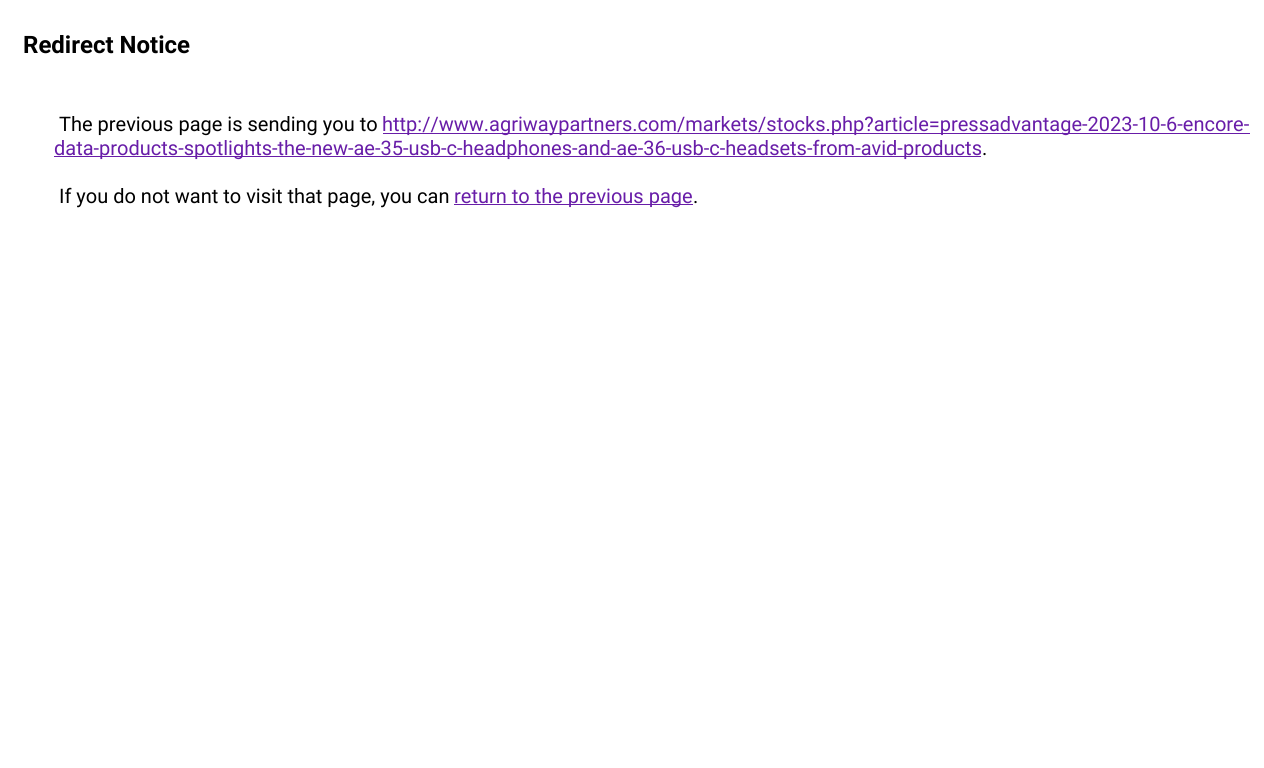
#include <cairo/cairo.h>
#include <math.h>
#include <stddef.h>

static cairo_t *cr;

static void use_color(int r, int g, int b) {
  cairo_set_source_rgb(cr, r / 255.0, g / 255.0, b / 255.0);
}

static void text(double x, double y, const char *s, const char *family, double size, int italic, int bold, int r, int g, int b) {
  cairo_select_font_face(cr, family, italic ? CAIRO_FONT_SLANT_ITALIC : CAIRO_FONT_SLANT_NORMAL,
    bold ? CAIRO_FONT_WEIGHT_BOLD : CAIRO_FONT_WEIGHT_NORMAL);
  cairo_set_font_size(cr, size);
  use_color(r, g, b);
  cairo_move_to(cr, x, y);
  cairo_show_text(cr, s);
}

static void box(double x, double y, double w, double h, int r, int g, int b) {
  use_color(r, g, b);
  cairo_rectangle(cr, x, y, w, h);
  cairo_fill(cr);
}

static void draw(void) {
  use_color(255, 255, 255);
  cairo_paint(cr);
  box(383, 133, 867, 1, 104, 29, 168);
  box(54, 156, 927, 1, 104, 29, 168);
  box(454, 204, 239, 1, 104, 29, 168);
  text(23, 53, "Redirect Notice", "Roboto", 24, 0, 1, 0, 0, 0);
  text(59, 131, "The previous page is sending you to", "Roboto", 20, 0, 0, 0, 0, 0);
  text(382, 131, "http://www.agriwaypartners.com/markets/stocks.php?article=pressadvantage-2023-10-6-encore-", "Roboto", 20, 0, 0, 104, 29, 168);
  text(54, 155, "data-products-spotlights-the-new-ae-35-usb-c-headphones-and-ae-36-usb-c-headsets-from-avid-products", "Roboto", 20, 0, 0, 104, 29, 168);
  text(982, 155, ".", "Roboto", 20, 0, 0, 0, 0, 0);
  text(59, 203, "If you do not want to visit that page, you can", "Roboto", 20, 0, 0, 0, 0, 0);
  text(454, 203, "return to the previous page", "Roboto", 20, 0, 0, 104, 29, 168);
  text(693, 203, ".", "Roboto", 20, 0, 0, 0, 0, 0);
}

int main(void) {
  cairo_surface_t *surface = cairo_image_surface_create(CAIRO_FORMAT_RGB24, 1264, 768);
  cr = cairo_create(surface);
  cairo_font_options_t *options = cairo_font_options_create();
  cairo_font_options_set_hint_metrics(options, CAIRO_HINT_METRICS_OFF);
  cairo_font_options_set_hint_style(options, CAIRO_HINT_STYLE_NONE);
  cairo_set_font_options(cr, options);
  cairo_set_miter_limit(cr, 4);
  draw();
  cairo_surface_write_to_png(surface, "out.png");
  cairo_font_options_destroy(options);
  cairo_destroy(cr);
  cairo_surface_destroy(surface);
  return 0;
}
